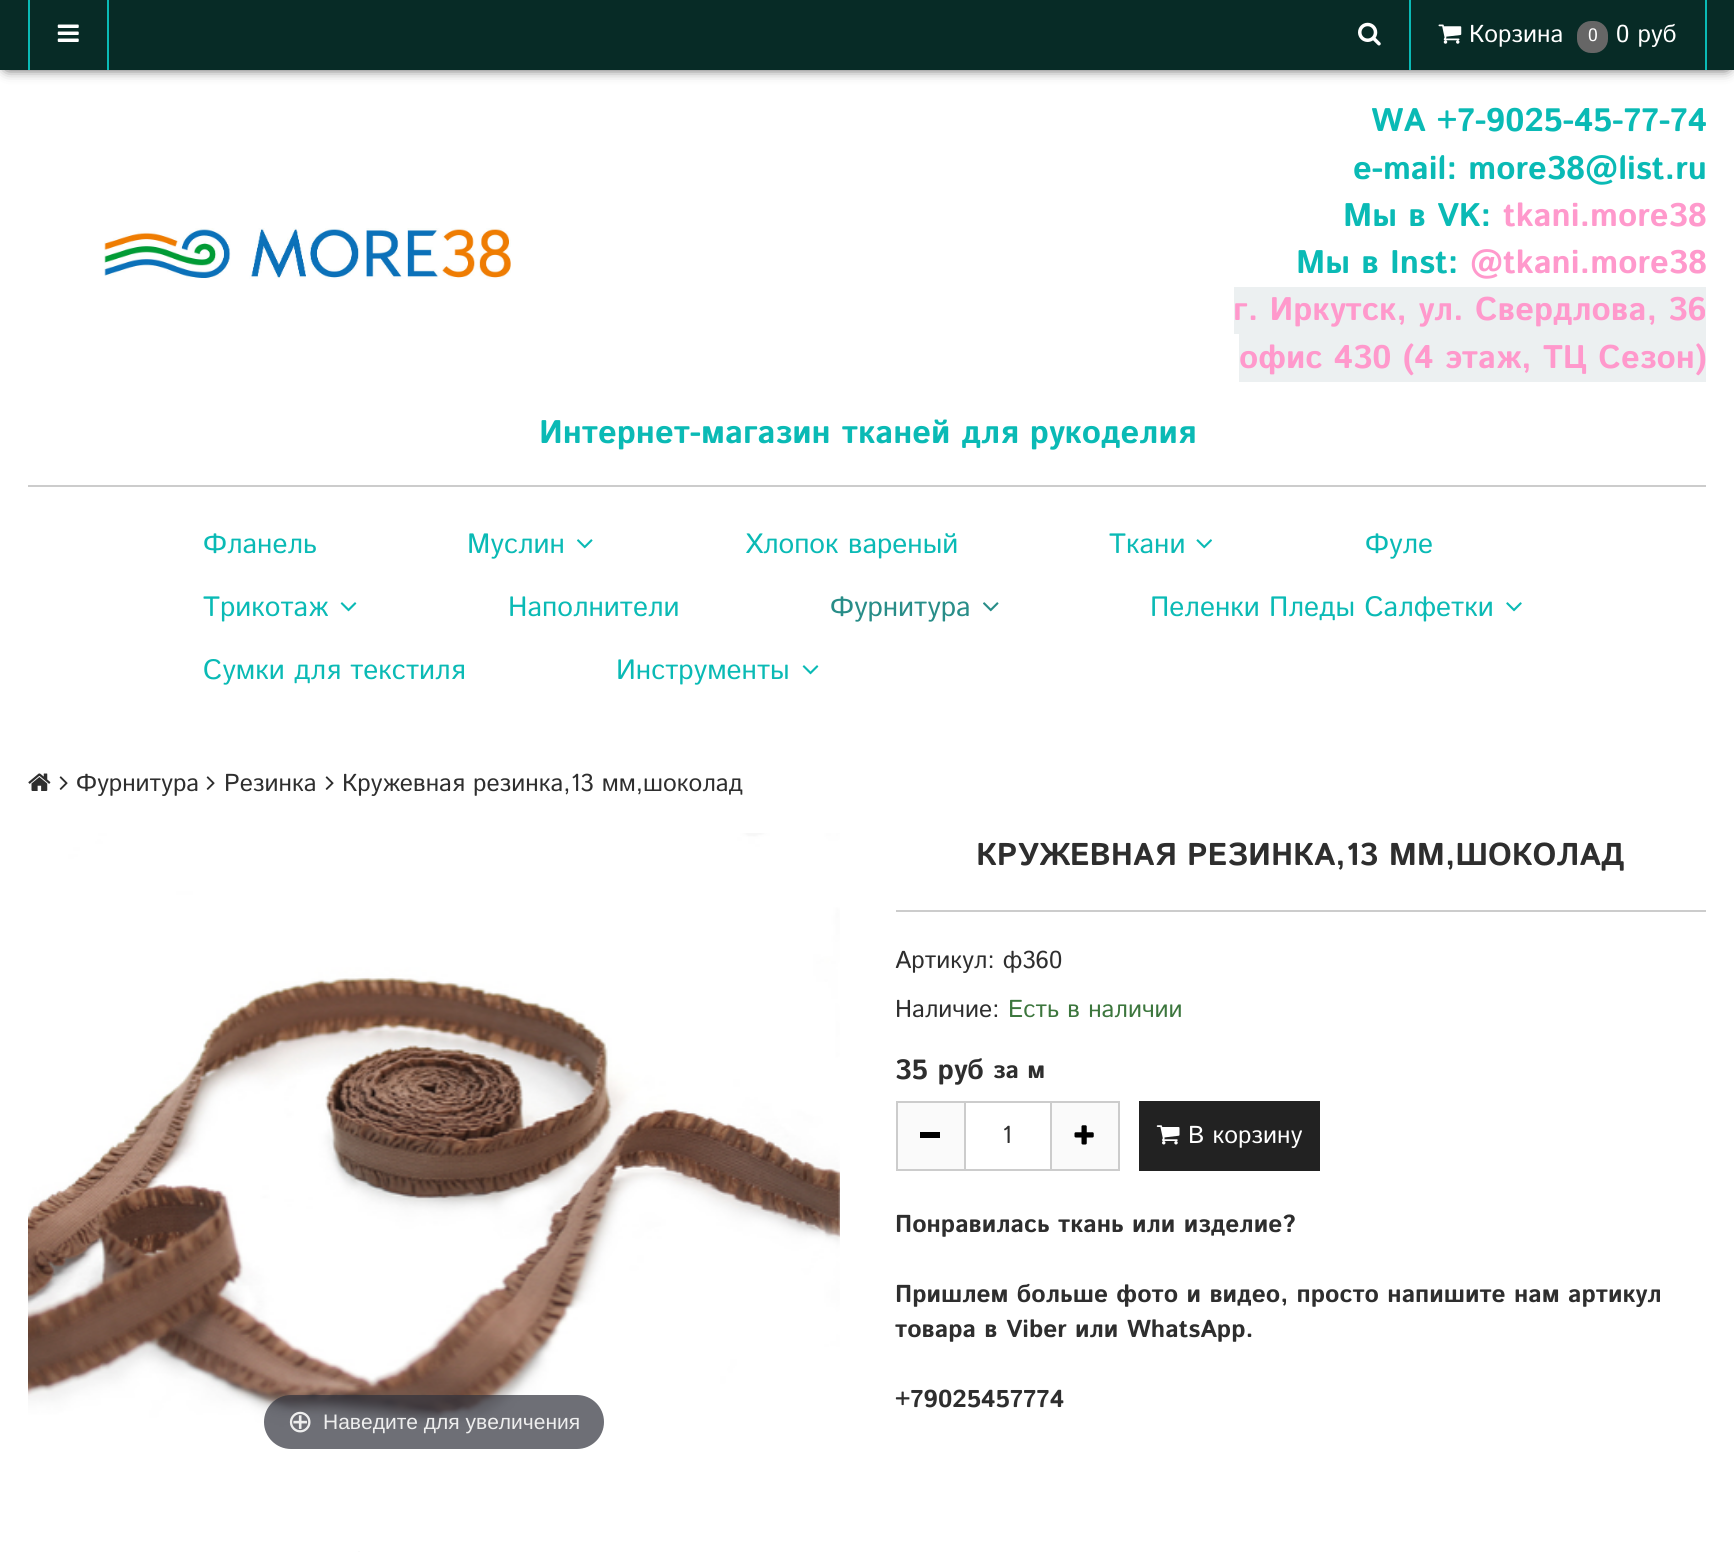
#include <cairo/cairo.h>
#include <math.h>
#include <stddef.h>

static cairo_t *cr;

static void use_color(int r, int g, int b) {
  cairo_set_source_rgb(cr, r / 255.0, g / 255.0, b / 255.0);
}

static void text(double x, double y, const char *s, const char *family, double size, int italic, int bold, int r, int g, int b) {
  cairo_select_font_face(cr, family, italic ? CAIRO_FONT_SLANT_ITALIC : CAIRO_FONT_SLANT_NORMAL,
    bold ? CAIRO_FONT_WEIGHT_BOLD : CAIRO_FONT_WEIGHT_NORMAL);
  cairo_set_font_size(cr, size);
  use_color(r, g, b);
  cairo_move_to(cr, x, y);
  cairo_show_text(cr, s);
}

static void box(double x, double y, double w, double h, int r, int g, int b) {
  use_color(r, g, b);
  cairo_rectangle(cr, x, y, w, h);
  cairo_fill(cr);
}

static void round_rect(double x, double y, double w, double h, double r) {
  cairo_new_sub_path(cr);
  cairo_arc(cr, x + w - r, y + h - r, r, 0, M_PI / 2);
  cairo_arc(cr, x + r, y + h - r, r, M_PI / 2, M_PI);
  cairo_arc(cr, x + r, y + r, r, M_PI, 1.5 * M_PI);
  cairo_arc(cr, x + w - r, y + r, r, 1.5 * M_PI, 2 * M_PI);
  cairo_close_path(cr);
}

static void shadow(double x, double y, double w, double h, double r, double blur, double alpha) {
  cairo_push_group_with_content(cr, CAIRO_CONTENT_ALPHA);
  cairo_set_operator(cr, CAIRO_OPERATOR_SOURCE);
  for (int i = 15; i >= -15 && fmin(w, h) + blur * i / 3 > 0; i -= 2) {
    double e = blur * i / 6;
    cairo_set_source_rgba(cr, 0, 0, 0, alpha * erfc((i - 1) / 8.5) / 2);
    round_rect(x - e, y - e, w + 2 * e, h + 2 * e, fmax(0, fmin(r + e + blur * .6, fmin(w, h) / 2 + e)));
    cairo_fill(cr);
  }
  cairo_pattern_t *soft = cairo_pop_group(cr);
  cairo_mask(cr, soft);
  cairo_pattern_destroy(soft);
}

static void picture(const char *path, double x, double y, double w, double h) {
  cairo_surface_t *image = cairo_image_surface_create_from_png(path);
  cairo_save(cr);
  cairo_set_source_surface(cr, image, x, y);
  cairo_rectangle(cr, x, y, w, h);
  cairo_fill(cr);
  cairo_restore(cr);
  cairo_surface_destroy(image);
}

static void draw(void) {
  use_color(255, 255, 255);
  cairo_paint(cr);
  use_color(0, 0, 0);
  shadow(7, 11, 1720, 56, 0, 7, 1);
  box(0, 0, 1734, 70, 7, 43, 38);
  box(107, 0, 2, 70, 10, 186, 181);
  box(28, 0, 2, 70, 10, 186, 181);
  picture("img_01.png", 57, 24, 22, 18);
  box(1409, 0, 2, 70, 10, 186, 181);
  picture("img_02.png", 1358, 22, 23, 24);
  box(1705, 0, 2, 70, 10, 186, 181);
  picture("img_03.png", 1438, 24, 24, 20);
  use_color(102, 102, 102);
  round_rect(1577, 21, 31, 32, 14);
  cairo_fill(cr);
  picture("img_04.png", 104, 228, 407, 51);
  box(1234, 287, 472, 47, 236, 240, 241);
  box(1239, 334, 467, 48, 236, 240, 241);
  box(28, 485, 1678, 2, 204, 204, 204);
  picture("img_05.png", 577, 539, 16, 10);
  picture("img_06.png", 1196, 539, 16, 10);
  picture("img_07.png", 340, 602, 17, 10);
  picture("img_08.png", 983, 602, 16, 10);
  picture("img_09.png", 1506, 602, 16, 10);
  picture("img_07.png", 802, 665, 17, 10);
  picture("img_10.png", 28, 773, 23, 18);
  picture("img_11.png", 59, 776, 9, 14);
  picture("img_11.png", 206, 776, 9, 14);
  picture("img_11.png", 325, 776, 9, 14);
  box(896, 910, 810, 2, 204, 204, 204);
  cairo_rectangle(cr, 965, 1102, 86, 68);
  cairo_stroke(cr);
  use_color(250, 250, 250);
  cairo_rectangle(cr, 897, 1102, 68, 68);
  cairo_fill_preserve(cr);
  use_color(204, 204, 204);
  cairo_stroke(cr);
  box(920, 1132, 20, 6, 0, 0, 0);
  use_color(250, 250, 250);
  cairo_rectangle(cr, 1051, 1102, 68, 68);
  cairo_fill_preserve(cr);
  use_color(204, 204, 204);
  cairo_stroke(cr);
  picture("img_12.png", 1074, 1125, 20, 20);
  box(1139, 1101, 181, 70, 34, 34, 34);
  picture("img_13.png", 1156, 1125, 24, 20);
  picture("img_14.png", 28, 833, 812, 594);
  cairo_set_source_rgba(cr, 0.192, 0.2, 0.239, 0.7);
  round_rect(264, 1395, 340, 54, 27);
  cairo_fill(cr);
  box(358, 1551, 2, 1, 250, 250, 250);
  text(1469, 42, "Корзина", "Istok Web", 24.5, 0, 0, 255, 255, 255);
  text(1588, 41, "0", "Istok Web", 18, 0, 0, 255, 255, 255);
  text(1616, 42, "0 руб", "Istok Web", 24.5, 0, 0, 255, 255, 255);
  text(1371, 131, "WA +7-9025-45-77-74", "Istok Web", 32.7, 0, 1, 10, 186, 181);
  text(1353, 179, "e-mail: more38@list.ru", "Istok Web", 32.7, 0, 1, 10, 186, 181);
  text(1343, 226, "Мы в VK:", "Istok Web", 32.7, 0, 1, 10, 186, 181);
  text(1503, 226, "tkani.more38", "Istok Web", 32.7, 0, 1, 255, 153, 204);
  text(1296, 273, "Мы в Inst:", "Istok Web", 32.7, 0, 1, 10, 186, 181);
  text(1470, 273, "@tkani.more38", "Istok Web", 32.7, 0, 1, 255, 153, 204);
  text(1233, 320, "г. Иркутск, ул. Свердлова, 36", "Istok Web", 32.7, 0, 1, 255, 153, 204);
  text(1239, 368, "офис 430 (4 этаж, ТЦ Сезон)", "Istok Web", 32.7, 0, 1, 255, 153, 204);
  text(539, 443, "Интернет-магазин тканей для рукоделия", "Istok Web", 32.7, 0, 1, 10, 186, 181);
  text(203, 553, "Фланель", "Istok Web", 28, 0, 0, 10, 186, 181);
  text(467, 553, "Муслин", "Istok Web", 28, 0, 0, 10, 186, 181);
  text(745, 553, "Хлопок вареный", "Istok Web", 28, 0, 0, 10, 186, 181);
  text(1109, 553, "Ткани", "Istok Web", 28, 0, 0, 10, 186, 181);
  text(1365, 553, "Фуле", "Istok Web", 28, 0, 0, 10, 186, 181);
  text(203, 616, "Трикотаж", "Istok Web", 28, 0, 0, 10, 186, 181);
  text(508, 616, "Наполнители", "Istok Web", 28, 0, 0, 10, 186, 181);
  text(830, 616, "Фурнитура", "Istok Web", 28, 0, 0, 40, 141, 136);
  text(1150, 616, "Пеленки Пледы Салфетки", "Istok Web", 28, 0, 0, 10, 186, 181);
  text(203, 679, "Сумки для текстиля", "Istok Web", 28, 0, 0, 10, 186, 181);
  text(616, 679, "Инструменты", "Istok Web", 28, 0, 0, 10, 186, 181);
  text(76, 791, "Фурнитура", "Istok Web", 24.5, 0, 0, 46, 46, 46);
  text(224, 791, "Резинка", "Istok Web", 24.5, 0, 0, 46, 46, 46);
  text(342, 791, "Кружевная резинка,13 мм,шоколад", "Istok Web", 24.5, 0, 0, 46, 46, 46);
  text(976, 865, "КРУЖЕВНАЯ РЕЗИНКА,13 ММ,ШОКОЛАД", "Istok Web", 31.5, 0, 1, 46, 46, 46);
  text(895, 968, "Артикул: ф360", "Istok Web", 24.5, 0, 0, 46, 46, 46);
  text(895, 1017, "Наличие:", "Istok Web", 24.5, 0, 0, 46, 46, 46);
  text(1008, 1017, "Есть в наличии", "Istok Web", 24.5, 0, 0, 60, 118, 61);
  text(895, 1079, "35 руб", "Istok Web", 28, 0, 1, 46, 46, 46);
  text(993, 1078, "за м", "Istok Web", 24.5, 0, 1, 46, 46, 46);
  text(1002, 1143, "1", "Istok Web", 24.5, 0, 0, 46, 46, 46);
  text(1188, 1143, "В корзину", "Istok Web", 24.5, 0, 0, 255, 255, 255);
  text(895, 1232, "Понравилась ткань или изделие?", "Istok Web", 24.5, 0, 1, 46, 46, 46);
  text(895, 1302, "Пришлем больше фото и видео, просто напишите нам артикул", "Istok Web", 24.5, 0, 1, 46, 46, 46);
  text(895, 1337, "товара в Viber или WhatsApp.", "Istok Web", 24.5, 0, 1, 46, 46, 46);
  text(895, 1407, "+79025457774", "Istok Web", 24.5, 0, 1, 46, 46, 46);
  text(287, 1432, "⊕", "DejaVu Sans", 31.5, 0, 0, 238, 238, 238);
  text(323, 1429, "Наведите для увеличения", "Liberation Sans", 21, 0, 0, 238, 238, 238);
}

int main(void) {
  cairo_surface_t *surface = cairo_image_surface_create(CAIRO_FORMAT_RGB24, 1734, 1557);
  cr = cairo_create(surface);
  cairo_font_options_t *options = cairo_font_options_create();
  cairo_font_options_set_hint_metrics(options, CAIRO_HINT_METRICS_OFF);
  cairo_font_options_set_hint_style(options, CAIRO_HINT_STYLE_NONE);
  cairo_set_font_options(cr, options);
  cairo_set_miter_limit(cr, 4);
  draw();
  cairo_surface_write_to_png(surface, "out.png");
  cairo_font_options_destroy(options);
  cairo_destroy(cr);
  cairo_surface_destroy(surface);
  return 0;
}
